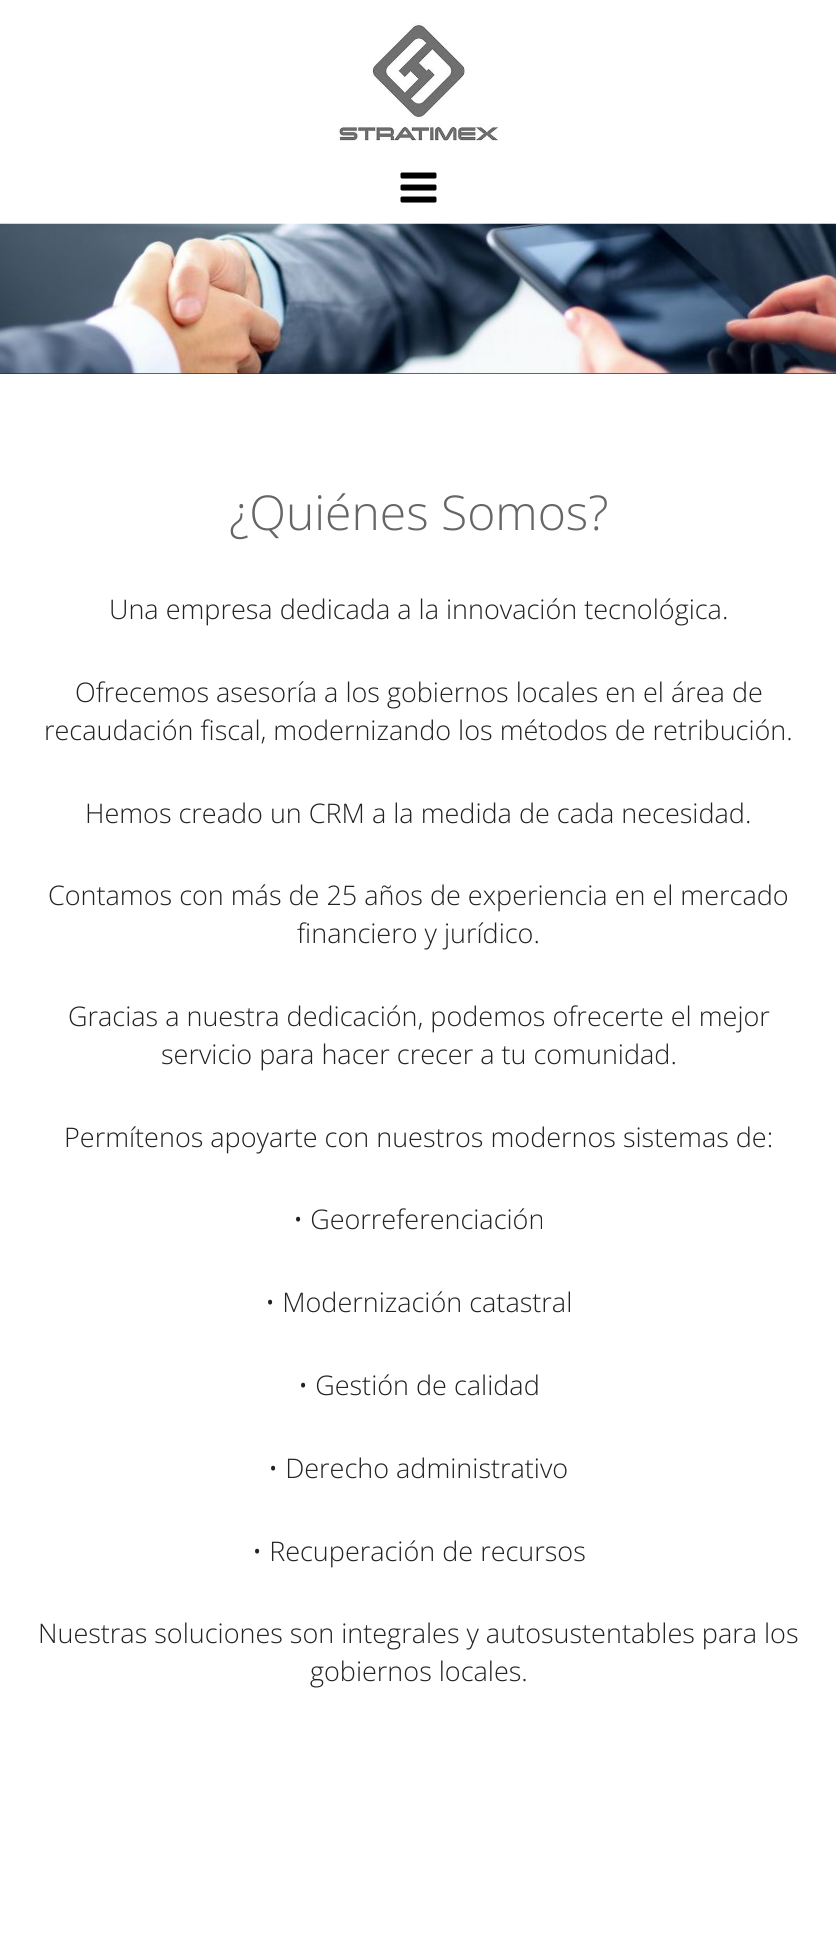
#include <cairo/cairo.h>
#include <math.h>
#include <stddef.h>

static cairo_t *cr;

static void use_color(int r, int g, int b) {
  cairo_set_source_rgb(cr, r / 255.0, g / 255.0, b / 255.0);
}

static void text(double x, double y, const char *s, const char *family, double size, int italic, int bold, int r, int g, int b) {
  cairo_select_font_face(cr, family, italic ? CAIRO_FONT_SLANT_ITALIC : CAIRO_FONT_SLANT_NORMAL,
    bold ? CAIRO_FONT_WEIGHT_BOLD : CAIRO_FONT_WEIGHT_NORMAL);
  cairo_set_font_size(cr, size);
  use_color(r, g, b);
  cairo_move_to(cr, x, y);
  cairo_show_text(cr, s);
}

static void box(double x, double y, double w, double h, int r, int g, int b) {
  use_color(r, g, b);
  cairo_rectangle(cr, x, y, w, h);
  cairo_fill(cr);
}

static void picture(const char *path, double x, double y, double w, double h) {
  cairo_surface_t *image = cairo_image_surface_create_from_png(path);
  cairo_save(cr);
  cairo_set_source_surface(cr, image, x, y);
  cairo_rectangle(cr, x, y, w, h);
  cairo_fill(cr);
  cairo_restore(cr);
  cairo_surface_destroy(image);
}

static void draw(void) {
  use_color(255, 255, 255);
  cairo_paint(cr);
  picture("img_01.png", 338, 22, 161, 119);
  picture("img_02.png", 400, 172, 37, 31);
  box(0, 373, 836, 1, 51, 51, 51);
  picture("img_03.png", 0, 223, 836, 151);
  text(229, 530, "¿Quiénes Somos?", "Open Sans Light", 48, 0, 0, 102, 102, 102);
  text(109, 619, "Una empresa dedicada a la innovación tecnológica.", "Open Sans Light", 27, 0, 0, 34, 34, 34);
  text(75, 702, "Ofrecemos asesoría a los gobiernos locales en el área de", "Open Sans Light", 27, 0, 0, 34, 34, 34);
  text(44, 740, "recaudación fiscal, modernizando los métodos de retribución.", "Open Sans Light", 27, 0, 0, 34, 34, 34);
  text(85, 823, "Hemos creado un CRM a la medida de cada necesidad.", "Open Sans Light", 27, 0, 0, 34, 34, 34);
  text(48, 905, "Contamos con más de 25 años de experiencia en el mercado", "Open Sans Light", 27, 0, 0, 34, 34, 34);
  text(297, 943, "financiero y jurídico.", "Open Sans Light", 27, 0, 0, 34, 34, 34);
  text(68, 1026, "Gracias a nuestra dedicación, podemos ofrecerte el mejor", "Open Sans Light", 27, 0, 0, 34, 34, 34);
  text(161, 1064, "servicio para hacer crecer a tu comunidad.", "Open Sans Light", 27, 0, 0, 34, 34, 34);
  text(64, 1147, "Permítenos apoyarte con nuestros modernos sistemas de:", "Open Sans Light", 27, 0, 0, 34, 34, 34);
  text(293, 1229, "• Georreferenciación", "Open Sans Light", 27, 0, 0, 34, 34, 34);
  text(265, 1312, "• Modernización catastral", "Open Sans Light", 27, 0, 0, 34, 34, 34);
  text(298, 1395, "• Gestión de calidad", "Open Sans Light", 27, 0, 0, 34, 34, 34);
  text(268, 1478, "• Derecho administrativo", "Open Sans Light", 27, 0, 0, 34, 34, 34);
  text(252, 1561, "• Recuperación de recursos", "Open Sans Light", 27, 0, 0, 34, 34, 34);
  text(38, 1643, "Nuestras soluciones son integrales y autosustentables para los", "Open Sans Light", 27, 0, 0, 34, 34, 34);
  text(310, 1681, "gobiernos locales.", "Open Sans Light", 27, 0, 0, 34, 34, 34);
}

int main(void) {
  cairo_surface_t *surface = cairo_image_surface_create(CAIRO_FORMAT_RGB24, 836, 1940);
  cr = cairo_create(surface);
  cairo_font_options_t *options = cairo_font_options_create();
  cairo_font_options_set_hint_metrics(options, CAIRO_HINT_METRICS_OFF);
  cairo_font_options_set_hint_style(options, CAIRO_HINT_STYLE_NONE);
  cairo_set_font_options(cr, options);
  cairo_set_miter_limit(cr, 4);
  draw();
  cairo_surface_write_to_png(surface, "out.png");
  cairo_font_options_destroy(options);
  cairo_destroy(cr);
  cairo_surface_destroy(surface);
  return 0;
}
